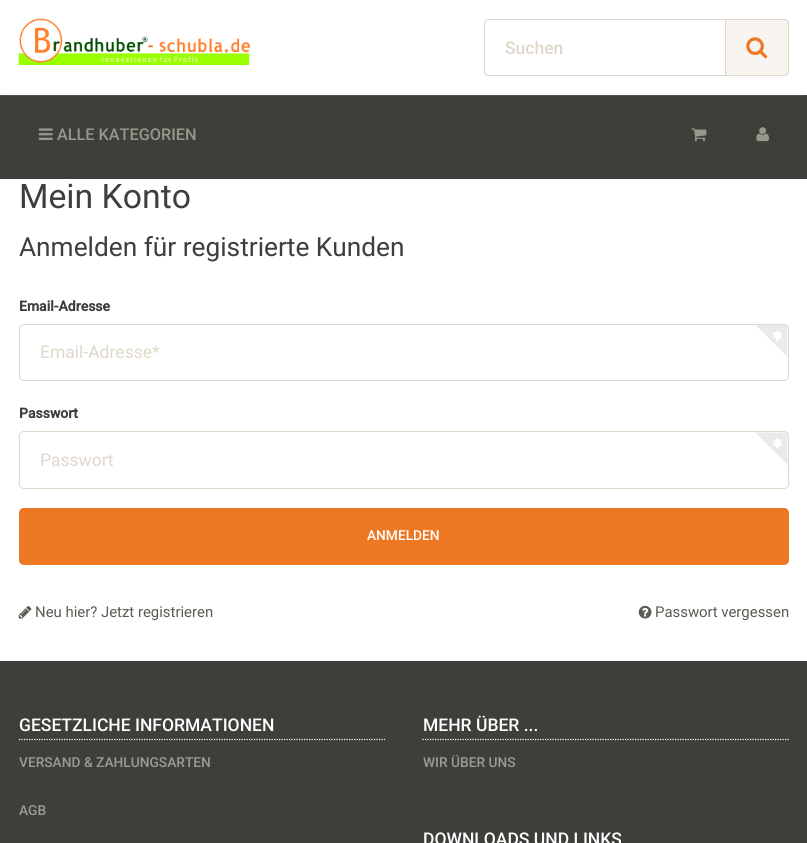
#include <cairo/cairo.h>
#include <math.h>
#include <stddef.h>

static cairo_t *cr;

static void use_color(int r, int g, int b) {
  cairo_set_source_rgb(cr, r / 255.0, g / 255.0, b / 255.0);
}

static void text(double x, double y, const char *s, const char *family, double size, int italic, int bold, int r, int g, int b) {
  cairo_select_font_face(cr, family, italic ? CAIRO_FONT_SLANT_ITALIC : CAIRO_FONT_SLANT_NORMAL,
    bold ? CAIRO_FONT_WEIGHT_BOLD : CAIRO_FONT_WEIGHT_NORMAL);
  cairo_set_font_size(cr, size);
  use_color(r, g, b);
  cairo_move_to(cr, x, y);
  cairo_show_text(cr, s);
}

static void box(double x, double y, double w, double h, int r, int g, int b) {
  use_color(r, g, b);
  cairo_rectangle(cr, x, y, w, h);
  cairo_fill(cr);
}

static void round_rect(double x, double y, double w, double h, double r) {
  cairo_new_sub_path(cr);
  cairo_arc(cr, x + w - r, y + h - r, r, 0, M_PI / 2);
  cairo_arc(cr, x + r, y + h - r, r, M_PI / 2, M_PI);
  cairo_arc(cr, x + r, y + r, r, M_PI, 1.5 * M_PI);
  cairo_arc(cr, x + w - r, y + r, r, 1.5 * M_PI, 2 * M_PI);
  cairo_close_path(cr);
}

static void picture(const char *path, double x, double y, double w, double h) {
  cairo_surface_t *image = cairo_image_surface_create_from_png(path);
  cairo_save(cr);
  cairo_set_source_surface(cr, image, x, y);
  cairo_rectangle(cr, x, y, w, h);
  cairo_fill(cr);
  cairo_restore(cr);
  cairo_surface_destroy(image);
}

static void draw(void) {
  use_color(255, 255, 255);
  cairo_paint(cr);
  picture("img_01.png", 18, 18, 232, 47);
  cairo_new_path(cr);
  cairo_move_to(cr, 489, 19.5);
  cairo_line_to(cr, 725.5, 19.5);
  cairo_line_to(cr, 725.5, 75.5);
  cairo_line_to(cr, 489, 75.5);
  cairo_curve_to(cr, 486.5, 75.5, 484.5, 73.5, 484.5, 71);
  cairo_line_to(cr, 484.5, 24);
  cairo_curve_to(cr, 484.5, 21.5, 486.5, 19.5, 489, 19.5);
  cairo_close_path(cr);
  use_color(223, 215, 202);
  cairo_set_line_width(cr, 1);
  cairo_stroke(cr);
  use_color(248, 245, 240);
  cairo_new_path(cr);
  cairo_move_to(cr, 726, 19);
  cairo_line_to(cr, 784, 19);
  cairo_curve_to(cr, 787, 19, 789, 21, 789, 24);
  cairo_line_to(cr, 789, 71);
  cairo_curve_to(cr, 789, 74, 787, 76, 784, 76);
  cairo_line_to(cr, 726, 76);
  cairo_close_path(cr);
  cairo_fill(cr);
  use_color(223, 215, 202);
  cairo_set_fill_rule(cr, CAIRO_FILL_RULE_EVEN_ODD);
  cairo_new_path(cr);
  cairo_move_to(cr, 726, 19);
  cairo_line_to(cr, 784, 19);
  cairo_curve_to(cr, 787, 19, 789, 21, 789, 24);
  cairo_line_to(cr, 789, 71);
  cairo_curve_to(cr, 789, 74, 787, 76, 784, 76);
  cairo_line_to(cr, 726, 76);
  cairo_close_path(cr);
  cairo_move_to(cr, 726, 20);
  cairo_line_to(cr, 784, 20);
  cairo_curve_to(cr, 786, 20, 788, 22, 788, 24);
  cairo_line_to(cr, 788, 71);
  cairo_curve_to(cr, 788, 73, 786, 75, 784, 75);
  cairo_line_to(cr, 726, 75);
  cairo_close_path(cr);
  cairo_fill(cr);
  picture("img_02.png", 746, 37, 22, 22);
  box(0, 95, 807, 84, 62, 63, 58);
  box(1, 95, 805, 1, 81, 82, 78);
  picture("img_03.png", 38, 128, 15, 12);
  picture("img_04.png", 691, 128, 16, 14);
  picture("img_05.png", 756, 127, 13, 15);
  picture("img_06.png", 755, 325, 33, 32);
  round_rect(19.5, 324.5, 769, 56, 4.5);
  use_color(223, 215, 202);
  cairo_stroke(cr);
  picture("img_07.png", 756, 432, 32, 33);
  round_rect(19.5, 431.5, 769, 57, 4.5);
  cairo_stroke(cr);
  use_color(238, 119, 36);
  round_rect(19, 508, 770, 57, 5);
  cairo_fill(cr);
  picture("img_08.png", 18, 606, 14, 13);
  picture("img_09.png", 638, 605, 14, 14);
  box(0, 661, 807, 182, 62, 63, 58);
  cairo_new_path(cr);
  cairo_move_to(cr, 19, 739.5);
  cairo_line_to(cr, 385, 739.5);
  use_color(255, 255, 255);
  cairo_set_line_width(cr, 1.2);
  cairo_set_dash(cr, (double[]){1.25, 1.25}, 2, 0);
  cairo_stroke(cr);
  cairo_new_path(cr);
  cairo_move_to(cr, 422.5, 739.5);
  cairo_line_to(cr, 789, 739.5);
  cairo_stroke(cr);
  text(505, 54, "Suchen", "Roboto Medium", 17.5, 0, 0, 223, 215, 202);
  text(57, 140, "ALLE KATEGORIEN", "Roboto Medium", 16.25, 0, 0, 152, 151, 139);
  text(19, 208, "Mein Konto", "Roboto", 33.75, 0, 0, 62, 63, 58);
  text(19, 256, "Anmelden für registrierte Kunden", "Roboto", 26.25, 0, 0, 62, 63, 58);
  text(19, 311, "Email-Adresse", "Roboto", 14, 0, 1, 62, 63, 58);
  text(40, 358, "Email-Adresse*", "Roboto", 17.5, 0, 0, 223, 215, 202);
  text(19, 418, "Passwort", "Roboto", 14, 0, 1, 62, 63, 58);
  text(40, 466, "Passwort", "Roboto", 17.5, 0, 0, 223, 215, 202);
  text(367, 540, "ANMELDEN", "Roboto Medium", 13.75, 0, 0, 255, 255, 255);
  text(35, 617, "Neu hier? Jetzt registrieren", "Roboto", 14.9, 0, 0, 91, 90, 83);
  text(655, 617, "Passwort vergessen", "Roboto", 14.9, 0, 0, 91, 90, 83);
  text(19, 731, "GESETZLICHE INFORMATIONEN", "Roboto Medium", 17.5, 0, 0, 255, 255, 255);
  text(19, 767, "VERSAND & ZAHLUNGSARTEN", "Roboto Medium", 13.75, 0, 0, 154, 154, 154);
  text(19, 815, "AGB", "Roboto Medium", 13.75, 0, 0, 154, 154, 154);
  text(423, 731, "MEHR ÜBER ...", "Roboto Medium", 17.5, 0, 0, 255, 255, 255);
  text(423, 767, "WIR ÜBER UNS", "Roboto Medium", 13.75, 0, 0, 154, 154, 154);
  text(423, 845, "DOWNLOADS UND LINKS", "Roboto Medium", 17.5, 0, 0, 255, 255, 255);
}

int main(void) {
  cairo_surface_t *surface = cairo_image_surface_create(CAIRO_FORMAT_RGB24, 807, 843);
  cr = cairo_create(surface);
  cairo_font_options_t *options = cairo_font_options_create();
  cairo_font_options_set_hint_metrics(options, CAIRO_HINT_METRICS_OFF);
  cairo_font_options_set_hint_style(options, CAIRO_HINT_STYLE_NONE);
  cairo_set_font_options(cr, options);
  cairo_set_miter_limit(cr, 4);
  draw();
  cairo_surface_write_to_png(surface, "out.png");
  cairo_font_options_destroy(options);
  cairo_destroy(cr);
  cairo_surface_destroy(surface);
  return 0;
}
